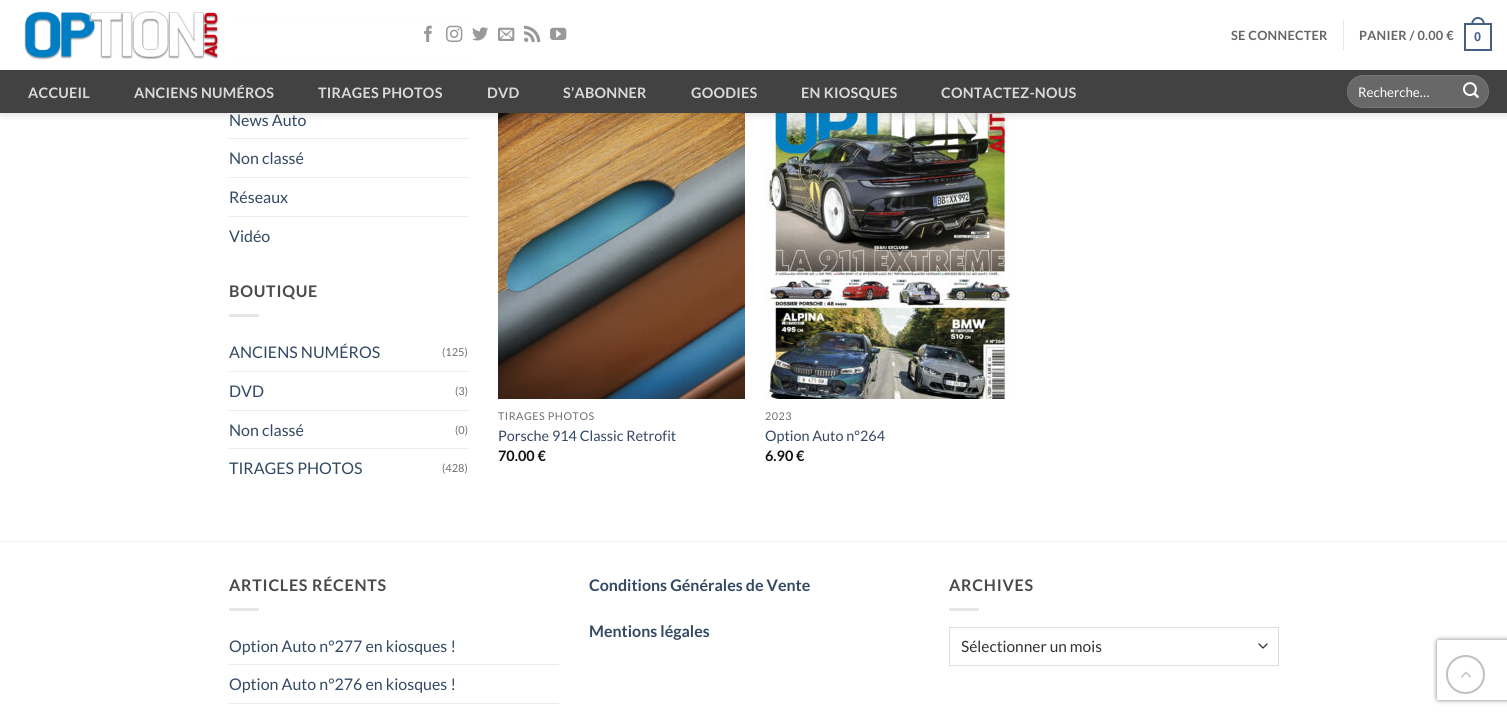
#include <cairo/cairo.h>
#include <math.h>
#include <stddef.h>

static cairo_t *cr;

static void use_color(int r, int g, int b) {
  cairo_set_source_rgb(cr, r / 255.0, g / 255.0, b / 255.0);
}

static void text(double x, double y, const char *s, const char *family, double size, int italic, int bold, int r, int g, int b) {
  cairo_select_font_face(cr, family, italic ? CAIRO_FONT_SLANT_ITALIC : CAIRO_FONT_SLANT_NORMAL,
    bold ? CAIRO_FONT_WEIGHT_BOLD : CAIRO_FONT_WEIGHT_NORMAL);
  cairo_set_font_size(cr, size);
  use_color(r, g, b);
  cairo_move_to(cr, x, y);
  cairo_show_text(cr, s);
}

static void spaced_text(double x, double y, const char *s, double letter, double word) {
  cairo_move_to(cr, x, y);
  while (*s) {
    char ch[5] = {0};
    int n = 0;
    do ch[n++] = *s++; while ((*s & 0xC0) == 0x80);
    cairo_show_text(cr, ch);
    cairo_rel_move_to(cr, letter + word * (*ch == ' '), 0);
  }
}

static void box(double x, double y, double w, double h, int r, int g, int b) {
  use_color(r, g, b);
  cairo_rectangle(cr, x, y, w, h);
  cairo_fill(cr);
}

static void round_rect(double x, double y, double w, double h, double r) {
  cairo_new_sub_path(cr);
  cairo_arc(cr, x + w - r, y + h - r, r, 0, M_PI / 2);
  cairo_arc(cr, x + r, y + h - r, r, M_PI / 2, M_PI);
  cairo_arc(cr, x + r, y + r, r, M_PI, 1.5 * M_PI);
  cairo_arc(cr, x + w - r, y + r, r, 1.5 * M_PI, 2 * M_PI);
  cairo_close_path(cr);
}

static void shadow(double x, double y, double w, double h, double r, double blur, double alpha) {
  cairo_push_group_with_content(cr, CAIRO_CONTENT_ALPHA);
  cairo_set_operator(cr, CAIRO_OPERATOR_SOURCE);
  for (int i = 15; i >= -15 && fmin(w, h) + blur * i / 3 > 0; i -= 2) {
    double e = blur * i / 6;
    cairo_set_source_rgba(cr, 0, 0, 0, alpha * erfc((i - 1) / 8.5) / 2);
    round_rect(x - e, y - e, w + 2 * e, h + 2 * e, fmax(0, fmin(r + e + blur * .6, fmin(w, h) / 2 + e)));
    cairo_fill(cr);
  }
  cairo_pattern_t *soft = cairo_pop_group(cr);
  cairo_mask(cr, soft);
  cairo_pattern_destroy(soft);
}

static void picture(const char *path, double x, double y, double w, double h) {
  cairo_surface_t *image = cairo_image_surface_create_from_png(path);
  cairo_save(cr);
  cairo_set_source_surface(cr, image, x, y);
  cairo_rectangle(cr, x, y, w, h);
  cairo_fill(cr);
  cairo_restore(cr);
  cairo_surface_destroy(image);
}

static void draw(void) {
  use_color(255, 255, 255);
  cairo_paint(cr);
  box(229, 23, 240, 1, 236, 236, 236);
  box(229, 61, 240, 1, 236, 236, 236);
  picture("img_09.png", 498, 113, 247, 286);
  picture("img_10.png", 765, 113, 247, 286);
  cairo_save(cr);
  cairo_rectangle(cr, 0, 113, 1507, 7);
  cairo_clip(cr);
  use_color(0, 0, 0);
  shadow(1, 1, 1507, 113, 0, 5, 0.15);
  cairo_restore(cr);
  cairo_set_source_rgba(cr, 1, 1, 1, 0.9);
  cairo_rectangle(cr, 229, 23, 240, 39);
  cairo_fill(cr);
  picture("img_01.png", 24, 11, 195, 49);
  picture("img_02.png", 424, 25, 8, 17);
  picture("img_03.png", 446, 25, 17, 17);
  picture("img_04.png", 472, 27, 16, 14);
  picture("img_05.png", 498, 27, 17, 14);
  picture("img_06.png", 524, 25, 17, 17);
  picture("img_07.png", 550, 27, 17, 13);
  box(1343, 20, 1, 30, 230, 230, 230);
  cairo_rectangle(cr, 1465, 24, 26, 26);
  use_color(68, 96, 132);
  cairo_stroke(cr);
  cairo_set_fill_rule(cr, CAIRO_FILL_RULE_EVEN_ODD);
  cairo_new_path(cr);
  cairo_move_to(cr, 1478, 17);
  cairo_curve_to(cr, 1482.5, 17, 1485, 21, 1485, 25);
  cairo_line_to(cr, 1471, 25);
  cairo_curve_to(cr, 1471, 21, 1473.5, 17, 1478, 17);
  cairo_close_path(cr);
  cairo_move_to(cr, 1478, 19);
  cairo_curve_to(cr, 1481.5, 19, 1483, 22, 1483, 25);
  cairo_line_to(cr, 1473, 25);
  cairo_curve_to(cr, 1473, 22, 1474.5, 19, 1478, 19);
  cairo_close_path(cr);
  cairo_fill(cr);
  box(0, 70, 1507, 43, 66, 66, 66);
  use_color(104, 104, 104);
  round_rect(1347, 75, 142, 33, 16.5);
  cairo_fill(cr);
  round_rect(1347.5, 75.5, 141, 32, 16);
  cairo_set_source_rgba(cr, 1, 1, 1, 0.09);
  cairo_set_line_width(cr, 1);
  cairo_stroke(cr);
  picture("img_08.png", 1463, 82, 16, 16);
  box(229, 138, 240, 1, 236, 236, 236);
  box(229, 177, 240, 1, 236, 236, 236);
  box(229, 216, 240, 1, 236, 236, 236);
  box(229, 314, 30, 3, 230, 230, 230);
  box(229, 371, 240, 1, 236, 236, 236);
  box(229, 410, 240, 1, 236, 236, 236);
  box(229, 448, 240, 1, 236, 236, 236);
  box(0, 541, 1507, 1, 242, 242, 242);
  box(229, 608, 30, 3, 230, 230, 230);
  box(229, 664, 330, 1, 236, 236, 236);
  box(229, 703, 330, 1, 236, 236, 236);
  box(949, 608, 30, 3, 230, 230, 230);
  cairo_new_path(cr);
  cairo_move_to(cr, 1259, 644);
  cairo_line_to(cr, 1263, 648);
  cairo_line_to(cr, 1267, 644);
  use_color(51, 51, 51);
  cairo_set_line_width(cr, 1.3);
  cairo_set_line_cap(cr, CAIRO_LINE_CAP_ROUND);
  cairo_set_line_join(cr, CAIRO_LINE_JOIN_ROUND);
  cairo_stroke(cr);
  cairo_rectangle(cr, 949.5, 627.5, 329, 38);
  use_color(221, 221, 221);
  cairo_set_line_width(cr, 1);
  cairo_set_line_cap(cr, CAIRO_LINE_CAP_BUTT);
  cairo_set_line_join(cr, CAIRO_LINE_JOIN_MITER);
  cairo_stroke(cr);
  cairo_arc(cr, 1465.5, 674.5, 18.5, 0, 2 * M_PI);
  use_color(192, 192, 192);
  cairo_set_line_width(cr, 2);
  cairo_stroke(cr);
  picture("img_11.png", 1460, 671, 11, 7);
  cairo_save(cr);
  cairo_new_path(cr);
  cairo_move_to(cr, 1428, 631);
  cairo_line_to(cr, 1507, 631);
  cairo_line_to(cr, 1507, 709);
  cairo_line_to(cr, 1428, 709);
  cairo_close_path(cr);
  cairo_move_to(cr, 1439, 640);
  cairo_line_to(cr, 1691, 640);
  cairo_curve_to(cr, 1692, 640, 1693, 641, 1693, 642);
  cairo_line_to(cr, 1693, 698);
  cairo_curve_to(cr, 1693, 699, 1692, 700, 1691, 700);
  cairo_line_to(cr, 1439, 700);
  cairo_curve_to(cr, 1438, 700, 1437, 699, 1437, 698);
  cairo_line_to(cr, 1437, 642);
  cairo_curve_to(cr, 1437, 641, 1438, 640, 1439, 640);
  cairo_close_path(cr);
  cairo_clip(cr);
  use_color(128, 128, 128);
  shadow(1437, 640, 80, 60, 2, 2.5, 1);
  cairo_restore(cr);
  cairo_select_font_face(cr, "Lato", CAIRO_FONT_SLANT_NORMAL, CAIRO_FONT_WEIGHT_BOLD);
  cairo_set_font_size(cr, 12.75);
  use_color(101, 101, 101);
  spaced_text(1231, 40, "SE CONNECTER", 0.25, 0);
  spaced_text(1359, 40, "PANIER / 0.00 €", 0.25, 0);
  cairo_select_font_face(cr, "Liberation Sans", CAIRO_FONT_SLANT_NORMAL, CAIRO_FONT_WEIGHT_BOLD);
  use_color(68, 96, 132);
  spaced_text(1474, 41, "0", 0.25, 0);
  cairo_select_font_face(cr, "Lato", CAIRO_FONT_SLANT_NORMAL, CAIRO_FONT_WEIGHT_BOLD);
  cairo_set_font_size(cr, 14.4);
  use_color(217, 217, 217);
  spaced_text(28, 98, "ACCUEIL", 0.25, 0);
  spaced_text(134, 98, "ANCIENS NUMÉROS", 0.25, 0);
  spaced_text(318, 98, "TIRAGES PHOTOS", 0.25, 0);
  spaced_text(487, 98, "DVD", 0.25, 0);
  spaced_text(563, 98, "S’ABONNER", 0.25, 0);
  spaced_text(691, 98, "GOODIES", 0.25, 0);
  spaced_text(801, 98, "EN KIOSQUES", 0.25, 0);
  spaced_text(941, 98, "CONTACTEZ-NOUS", 0.25, 0);
  text(1358, 97, "Recherche…", "Lato", 13.25, 0, 0, 255, 255, 255);
  text(229, 126, "News Auto", "Lato", 16, 0, 0, 51, 72, 98);
  text(229, 164, "Non classé", "Lato", 16, 0, 0, 51, 72, 98);
  text(229, 203, "Réseaux", "Lato", 16, 0, 0, 51, 72, 98);
  text(229, 242, "Vidéo", "Lato", 16, 0, 0, 51, 72, 98);
  cairo_select_font_face(cr, "Lato", CAIRO_FONT_SLANT_NORMAL, CAIRO_FONT_WEIGHT_BOLD);
  use_color(74, 74, 74);
  spaced_text(229, 297, "BOUTIQUE", 0.75, 0);
  text(229, 358, "ANCIENS NUMÉROS", "Lato", 16, 0, 0, 51, 72, 98);
  text(442, 356, "(125)", "Lato", 11, 0, 0, 110, 110, 110);
  text(229, 397, "DVD", "Lato", 16, 0, 0, 51, 72, 98);
  text(455, 395, "(3)", "Lato", 11, 0, 0, 110, 110, 110);
  text(229, 436, "Non classé", "Lato", 16, 0, 0, 51, 72, 98);
  text(455, 434, "(0)", "Lato", 11, 0, 0, 110, 110, 110);
  text(229, 474, "TIRAGES PHOTOS", "Lato", 16, 0, 0, 51, 72, 98);
  text(442, 472, "(428)", "Lato", 11, 0, 0, 110, 110, 110);
  cairo_set_font_size(cr, 10.75);
  spaced_text(498, 420, "TIRAGES PHOTOS", 0.5, 0);
  text(498, 441, "Porsche 914 Classic Retrofit", "Lato", 14.4, 0, 0, 51, 72, 98);
  text(498, 461, "70.00 €", "Lato", 14.4, 0, 1, 17, 17, 17);
  cairo_select_font_face(cr, "Lato", CAIRO_FONT_SLANT_NORMAL, CAIRO_FONT_WEIGHT_NORMAL);
  cairo_set_font_size(cr, 10.75);
  use_color(110, 110, 110);
  spaced_text(765, 420, "2023", 0.5, 0);
  text(765, 441, "Option Auto n°264", "Lato", 14.4, 0, 0, 51, 72, 98);
  text(765, 461, "6.90 €", "Lato", 14.4, 0, 1, 17, 17, 17);
  cairo_set_font_size(cr, 16);
  use_color(74, 74, 74);
  spaced_text(229, 591, "ARTICLES RÉCENTS", 0.75, 0);
  text(229, 652, "Option Auto n°277 en kiosques !", "Lato", 16, 0, 0, 51, 72, 98);
  text(229, 690, "Option Auto n°276 en kiosques !", "Lato", 16, 0, 0, 51, 72, 98);
  text(589, 591, "Conditions Générales de Vente", "Lato", 16, 0, 1, 51, 72, 98);
  text(589, 637, "Mentions légales", "Lato", 16, 0, 1, 51, 72, 98);
  use_color(74, 74, 74);
  spaced_text(949, 591, "ARCHIVES", 0.75, 0);
  text(961, 652, "Sélectionner un mois", "Lato", 15.5, 0, 0, 51, 51, 51);
}

int main(void) {
  cairo_surface_t *surface = cairo_image_surface_create(CAIRO_FORMAT_RGB24, 1507, 714);
  cr = cairo_create(surface);
  cairo_font_options_t *options = cairo_font_options_create();
  cairo_font_options_set_hint_metrics(options, CAIRO_HINT_METRICS_OFF);
  cairo_font_options_set_hint_style(options, CAIRO_HINT_STYLE_NONE);
  cairo_set_font_options(cr, options);
  cairo_set_miter_limit(cr, 4);
  draw();
  cairo_surface_write_to_png(surface, "out.png");
  cairo_font_options_destroy(options);
  cairo_destroy(cr);
  cairo_surface_destroy(surface);
  return 0;
}
